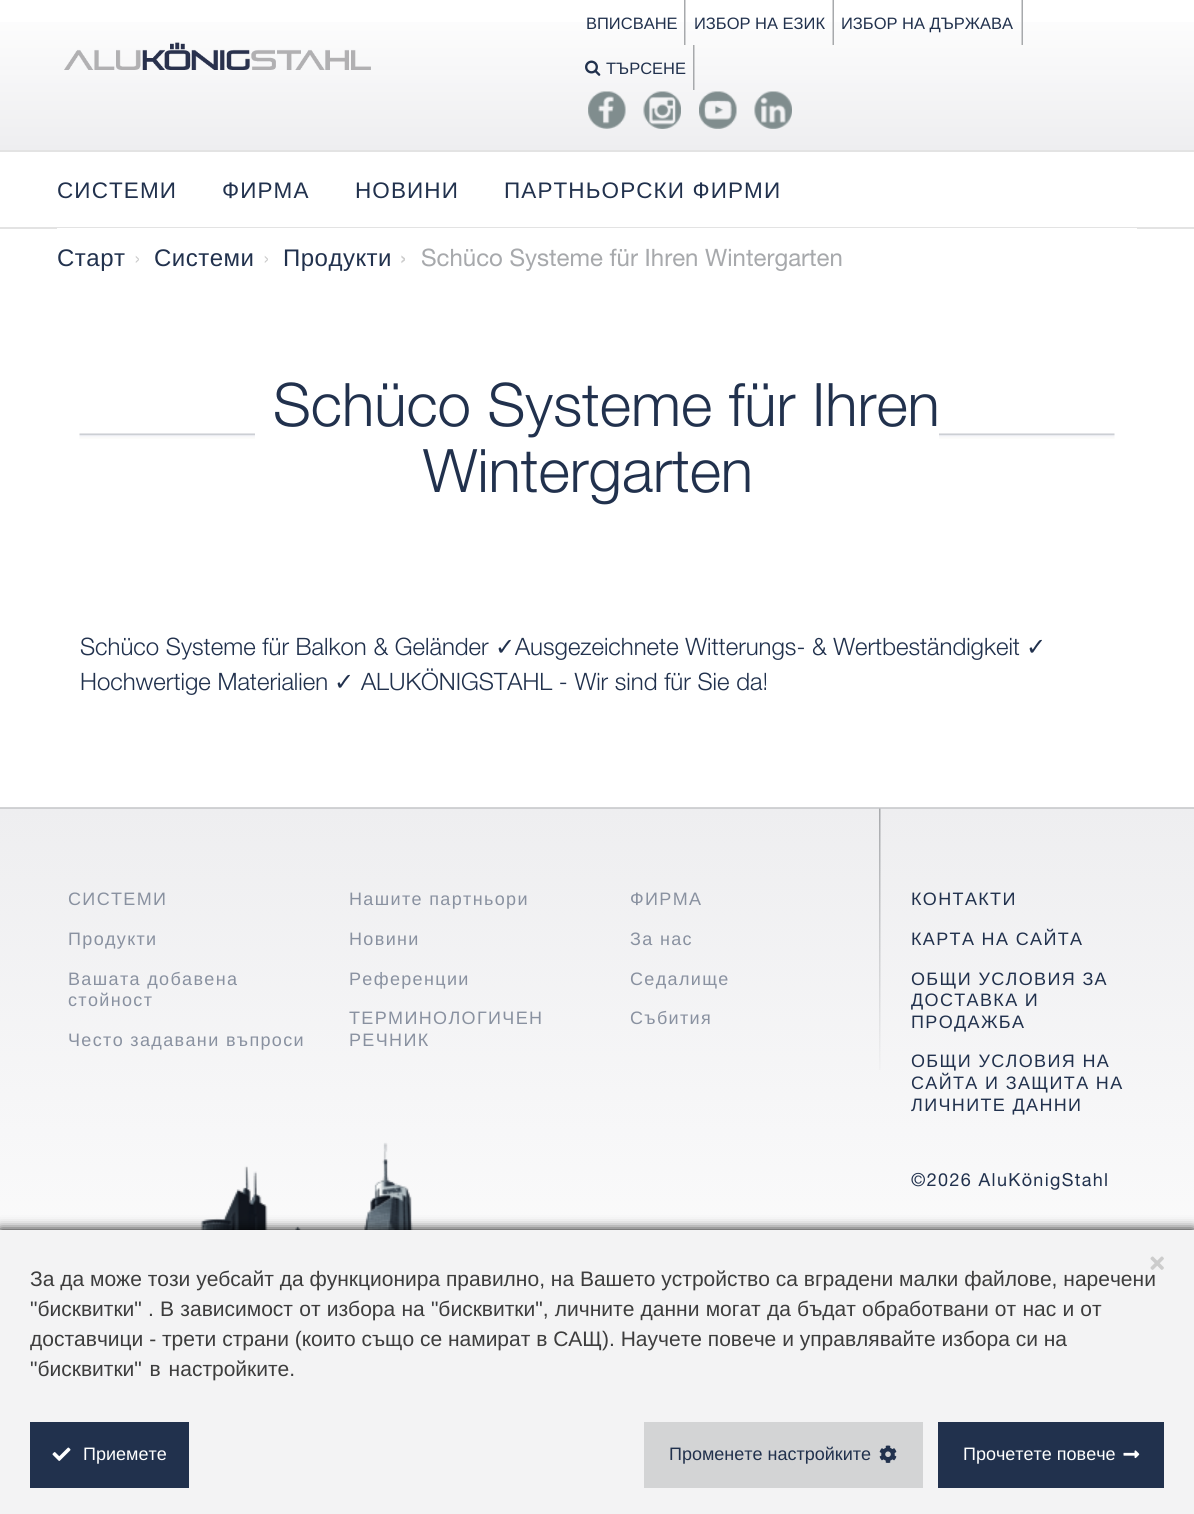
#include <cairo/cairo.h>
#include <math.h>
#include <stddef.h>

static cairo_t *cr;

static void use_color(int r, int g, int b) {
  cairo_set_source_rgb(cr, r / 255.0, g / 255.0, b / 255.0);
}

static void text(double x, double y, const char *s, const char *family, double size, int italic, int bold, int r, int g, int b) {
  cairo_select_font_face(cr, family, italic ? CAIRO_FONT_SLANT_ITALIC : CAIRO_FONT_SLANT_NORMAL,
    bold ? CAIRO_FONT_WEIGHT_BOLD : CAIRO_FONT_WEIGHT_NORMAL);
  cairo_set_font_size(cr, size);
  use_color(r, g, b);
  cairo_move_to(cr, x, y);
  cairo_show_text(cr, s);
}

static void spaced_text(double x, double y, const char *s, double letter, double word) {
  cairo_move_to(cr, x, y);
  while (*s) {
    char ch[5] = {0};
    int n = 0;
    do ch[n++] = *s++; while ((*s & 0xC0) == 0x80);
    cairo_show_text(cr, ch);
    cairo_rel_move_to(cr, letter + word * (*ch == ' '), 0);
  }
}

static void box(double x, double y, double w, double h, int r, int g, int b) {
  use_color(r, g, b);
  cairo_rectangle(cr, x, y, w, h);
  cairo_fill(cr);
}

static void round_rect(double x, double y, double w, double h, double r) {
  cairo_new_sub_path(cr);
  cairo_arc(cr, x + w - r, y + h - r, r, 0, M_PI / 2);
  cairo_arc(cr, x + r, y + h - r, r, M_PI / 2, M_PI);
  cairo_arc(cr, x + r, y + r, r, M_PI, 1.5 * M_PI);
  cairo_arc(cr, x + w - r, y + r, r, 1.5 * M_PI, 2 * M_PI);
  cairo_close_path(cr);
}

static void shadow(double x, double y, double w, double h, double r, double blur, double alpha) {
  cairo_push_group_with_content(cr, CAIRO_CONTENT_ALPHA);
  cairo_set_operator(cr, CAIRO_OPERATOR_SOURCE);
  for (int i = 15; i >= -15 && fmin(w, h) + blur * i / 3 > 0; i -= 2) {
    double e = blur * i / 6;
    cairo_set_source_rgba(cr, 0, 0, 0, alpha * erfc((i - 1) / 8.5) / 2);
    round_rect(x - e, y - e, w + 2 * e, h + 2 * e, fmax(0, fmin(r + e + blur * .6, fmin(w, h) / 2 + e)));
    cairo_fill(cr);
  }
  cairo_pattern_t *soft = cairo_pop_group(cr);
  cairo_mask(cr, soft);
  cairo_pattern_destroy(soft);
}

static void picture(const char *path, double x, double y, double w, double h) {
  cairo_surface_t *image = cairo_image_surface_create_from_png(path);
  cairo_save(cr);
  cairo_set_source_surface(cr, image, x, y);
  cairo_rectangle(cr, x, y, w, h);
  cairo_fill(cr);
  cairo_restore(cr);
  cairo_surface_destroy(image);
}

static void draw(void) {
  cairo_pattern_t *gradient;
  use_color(255, 255, 255);
  cairo_paint(cr);
  gradient = cairo_pattern_create_linear(597, 0, 597, 150);
  cairo_pattern_add_color_stop_rgba(gradient, 0, 1, 1, 1, 1);
  cairo_pattern_add_color_stop_rgba(gradient, 1, 0.933, 0.933, 0.941, 1);
  cairo_set_source(cr, gradient);
  cairo_pattern_destroy(gradient);
  cairo_rectangle(cr, 0, 22, 1194, 128);
  cairo_fill(cr);
  box(0, 150, 1194, 2, 227, 227, 227);
  picture("img_01.png", 64, 42, 307, 28);
  picture("img_02.png", 684, 0, 2, 45);
  picture("img_03.png", 832, 0, 2, 45);
  picture("img_04.png", 1021, 0, 2, 45);
  picture("img_05.png", 693, 45, 2, 45);
  picture("img_06.png", 585, 60, 16, 16);
  picture("img_07.png", 588, 91, 38, 38);
  picture("img_08.png", 643, 91, 38, 38);
  picture("img_09.png", 699, 91, 38, 38);
  picture("img_10.png", 754, 91, 38, 38);
  box(0, 227, 1194, 2, 227, 227, 227);
  box(57, 228, 1080, 1, 255, 255, 255);
  picture("img_11.png", 79, 433, 1036, 6);
  box(255, 433, 684, 6, 255, 255, 255);
  picture("img_12.png", 0, 808, 1194, 422);
  cairo_set_source_rgba(cr, 0.655, 0.663, 0.675, 0.5);
  cairo_rectangle(cr, 0, 807, 1194, 2);
  cairo_fill(cr);
  picture("img_13.png", 879, 808, 2, 262);
  use_color(0, 0, 0);
  shadow(0, 1230, 1194, 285, 0, 6, 1);
  box(0, 1230, 1194, 284, 243, 243, 244);
  picture("img_14.png", 1150, 1256, 14, 14);
  box(30, 1422, 159, 66, 33, 49, 77);
  picture("img_15.png", 52, 1447, 19, 14);
  box(644, 1422, 279, 66, 211, 212, 213);
  picture("img_16.png", 879, 1445, 18, 18);
  box(938, 1422, 226, 66, 33, 49, 77);
  picture("img_17.png", 1123, 1450, 17, 9);
  text(586, 29, "ВПИСВАНЕ", "Liberation Sans", 16.5, 0, 0, 33, 49, 77);
  text(694, 29, "ИЗБОР НА ЕЗИК", "Liberation Sans", 16.5, 0, 0, 33, 49, 77);
  text(841, 29, "ИЗБОР НА ДЪРЖАВА", "Liberation Sans", 16.5, 0, 0, 33, 49, 77);
  text(606, 74, "ТЪРСЕНЕ", "Liberation Sans", 16.5, 0, 0, 33, 49, 77);
  cairo_set_font_size(cr, 22.5);
  spaced_text(57, 198, "СИСТЕМИ", 1.1, 0);
  spaced_text(222, 198, "ФИРМА", 1.1, 0);
  spaced_text(355, 198, "НОВИНИ", 1.1, 0);
  spaced_text(504, 198, "ПАРТНЬОРСКИ ФИРМИ", 1.1, 0);
  cairo_set_font_size(cr, 24);
  spaced_text(57, 266, "Старт", 0.5, 0);
  text(134, 266, "›", "Helvetica Neue Light", 24, 0, 0, 204, 204, 204);
  cairo_select_font_face(cr, "Liberation Sans", CAIRO_FONT_SLANT_NORMAL, CAIRO_FONT_WEIGHT_NORMAL);
  use_color(33, 49, 77);
  spaced_text(154, 266, "Системи", 0.5, 0);
  text(263, 266, "›", "Helvetica Neue Light", 24, 0, 0, 204, 204, 204);
  cairo_select_font_face(cr, "Liberation Sans", CAIRO_FONT_SLANT_NORMAL, CAIRO_FONT_WEIGHT_NORMAL);
  use_color(33, 49, 77);
  spaced_text(283, 266, "Продукти", 0.5, 0);
  text(400, 266, "›", "Helvetica Neue", 24, 0, 0, 204, 204, 204);
  text(421, 266, "Schüco Systeme für Ihren Wintergarten", "Helvetica Neue", 24, 0, 0, 167, 169, 172);
  text(273, 426, "Schüco Systeme für Ihren", "Helvetica Neue Light", 60, 0, 0, 33, 49, 77);
  text(423, 492, "Wintergarten", "Helvetica Neue Light", 60, 0, 0, 33, 49, 77);
  text(80, 655, "Schüco Systeme für Balkon & Geländer", "Helvetica Neue Light", 24, 0, 0, 33, 49, 77);
  text(495, 655, "✓", "DejaVu Sans", 24, 0, 0, 33, 49, 77);
  text(515, 655, "Ausgezeichnete Witterungs- & Wertbeständigkeit", "Helvetica Neue Light", 24, 0, 0, 33, 49, 77);
  text(1026, 655, "✓", "DejaVu Sans", 24, 0, 0, 33, 49, 77);
  text(80, 690, "Hochwertige Materialien", "Helvetica Neue Light", 24, 0, 0, 33, 49, 77);
  text(334, 690, "✓", "DejaVu Sans", 24, 0, 0, 33, 49, 77);
  text(361, 690, "ALUKÖNIGSTAHL - Wir sind für Sie da!", "Helvetica Neue Light", 24, 0, 0, 33, 49, 77);
  cairo_select_font_face(cr, "Liberation Sans", CAIRO_FONT_SLANT_NORMAL, CAIRO_FONT_WEIGHT_NORMAL);
  cairo_set_font_size(cr, 18);
  use_color(137, 145, 160);
  spaced_text(68, 905, "СИСТЕМИ", 1.35, 0);
  spaced_text(68, 945, "Продукти", 1.35, 0);
  spaced_text(68, 985, "Вашата добавена", 1.35, 0);
  spaced_text(68, 1006, "стойност", 1.35, 0);
  spaced_text(68, 1046, "Често задавани въпроси", 1.35, 0);
  spaced_text(349, 905, "Нашите партньори", 1.35, 0);
  spaced_text(349, 945, "Новини", 1.35, 0);
  spaced_text(349, 985, "Референции", 1.35, 0);
  spaced_text(349, 1024, "ТЕРМИНОЛОГИЧЕН", 1.35, 0);
  spaced_text(349, 1046, "РЕЧНИК", 1.35, 0);
  spaced_text(630, 905, "ФИРМА", 1.35, 0);
  spaced_text(630, 945, "За нас", 1.35, 0);
  spaced_text(630, 985, "Седалище", 1.35, 0);
  spaced_text(630, 1024, "Събития", 1.35, 0);
  use_color(33, 49, 77);
  spaced_text(911, 905, "КОНТАКТИ", 1.35, 0);
  spaced_text(911, 945, "КАРТА НА САЙТА", 1.35, 0);
  spaced_text(911, 985, "ОБЩИ УСЛОВИЯ ЗА", 1.35, 0);
  spaced_text(911, 1006, "ДОСТАВКА И", 1.35, 0);
  spaced_text(911, 1028, "ПРОДАЖБА", 1.35, 0);
  spaced_text(911, 1067, "ОБЩИ УСЛОВИЯ НА", 1.35, 0);
  spaced_text(911, 1089, "САЙТА И ЗАЩИТА НА", 1.35, 0);
  spaced_text(911, 1111, "ЛИЧНИТЕ ДАННИ", 1.35, 0);
  cairo_select_font_face(cr, "Helvetica Neue", CAIRO_FONT_SLANT_NORMAL, CAIRO_FONT_WEIGHT_NORMAL);
  spaced_text(911, 1186, "©2026 AluKönigStahl", 1.35, 0);
  text(30, 1286, "За да може този уебсайт да функционира правилно, на Вашето устройство са вградени малки файлове, наречени", "Liberation Sans", 21, 0, 0, 61, 61, 61);
  spaced_text(30, 1316, "\"бисквитки\" . В зависимост от избора на \"бисквитки\", личните данни могат да бъдат обработвани от нас и от", 0, 0.4);
  text(30, 1346, "доставчици - трети страни (които също се намират в САЩ). Научете повече и управлявайте избора си на", "Liberation Sans", 21, 0, 0, 61, 61, 61);
  spaced_text(30, 1376, "\"бисквитки\" в настройките.", 0, 2);
  text(83, 1460, "Приемете", "Liberation Sans", 18, 0, 0, 255, 255, 255);
  text(669, 1460, "Променете настройките", "Liberation Sans", 18, 0, 0, 33, 49, 77);
  text(963, 1460, "Прочетете повече", "Liberation Sans", 18, 0, 0, 255, 255, 255);
}

int main(void) {
  cairo_surface_t *surface = cairo_image_surface_create(CAIRO_FORMAT_RGB24, 1194, 1514);
  cr = cairo_create(surface);
  cairo_font_options_t *options = cairo_font_options_create();
  cairo_font_options_set_hint_metrics(options, CAIRO_HINT_METRICS_OFF);
  cairo_font_options_set_hint_style(options, CAIRO_HINT_STYLE_NONE);
  cairo_set_font_options(cr, options);
  cairo_set_miter_limit(cr, 4);
  draw();
  cairo_surface_write_to_png(surface, "out.png");
  cairo_font_options_destroy(options);
  cairo_destroy(cr);
  cairo_surface_destroy(surface);
  return 0;
}
